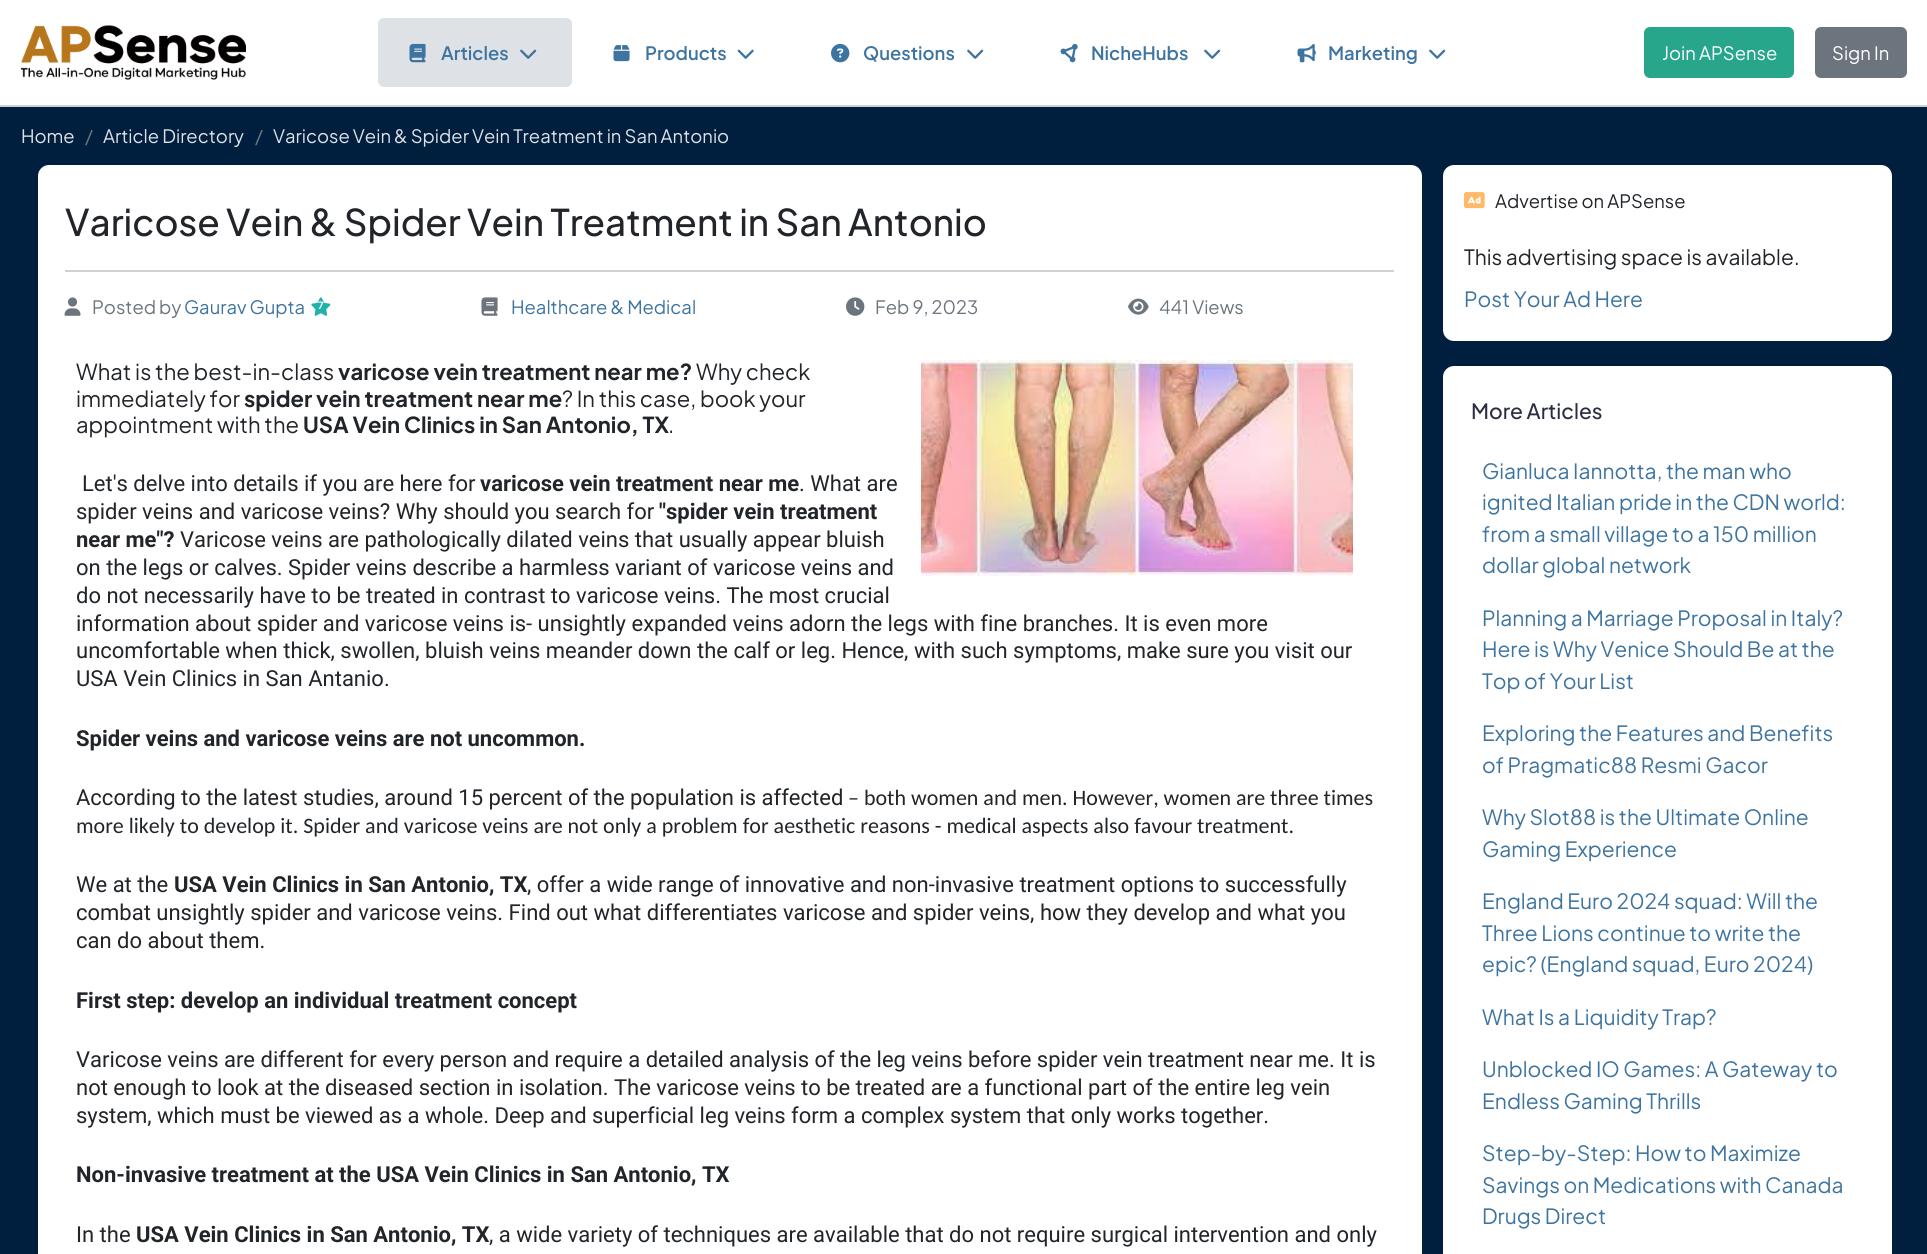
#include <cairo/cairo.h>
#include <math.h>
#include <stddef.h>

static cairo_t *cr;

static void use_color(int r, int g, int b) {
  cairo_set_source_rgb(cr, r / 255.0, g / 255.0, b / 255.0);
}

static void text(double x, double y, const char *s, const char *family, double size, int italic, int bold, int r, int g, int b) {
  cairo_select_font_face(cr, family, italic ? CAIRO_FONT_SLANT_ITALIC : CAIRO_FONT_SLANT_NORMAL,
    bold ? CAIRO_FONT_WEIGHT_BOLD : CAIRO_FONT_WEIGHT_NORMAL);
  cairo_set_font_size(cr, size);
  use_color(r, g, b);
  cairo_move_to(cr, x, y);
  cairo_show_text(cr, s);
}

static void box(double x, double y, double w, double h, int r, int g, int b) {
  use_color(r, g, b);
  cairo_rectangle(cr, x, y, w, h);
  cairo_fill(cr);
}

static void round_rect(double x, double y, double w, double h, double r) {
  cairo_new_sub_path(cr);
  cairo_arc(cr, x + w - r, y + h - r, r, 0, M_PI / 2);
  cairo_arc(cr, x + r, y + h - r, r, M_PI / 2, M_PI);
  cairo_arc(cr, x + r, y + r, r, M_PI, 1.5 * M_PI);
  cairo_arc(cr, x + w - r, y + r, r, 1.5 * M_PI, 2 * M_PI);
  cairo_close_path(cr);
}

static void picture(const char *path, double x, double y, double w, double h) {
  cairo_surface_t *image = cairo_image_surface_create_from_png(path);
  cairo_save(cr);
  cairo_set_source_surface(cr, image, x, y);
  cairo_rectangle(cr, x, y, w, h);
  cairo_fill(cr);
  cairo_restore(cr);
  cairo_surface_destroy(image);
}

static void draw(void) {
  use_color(0, 31, 63);
  cairo_paint(cr);
  box(0, 0, 1927, 105, 255, 255, 255);
  box(0, 105, 1927, 2, 209, 209, 209);
  picture("img_01.png", 21, 25, 225, 55);
  use_color(222, 226, 230);
  round_rect(378, 18, 194, 69, 6);
  cairo_fill(cr);
  picture("img_02.png", 409, 43, 17, 20);
  picture("img_03.png", 520, 49, 17, 10);
  picture("img_04.png", 613, 45, 17, 17);
  picture("img_05.png", 737, 49, 17, 10);
  picture("img_06.png", 831, 43, 19, 20);
  picture("img_07.png", 967, 49, 17, 10);
  picture("img_08.png", 1060, 43, 18, 20);
  picture("img_07.png", 1204, 49, 17, 10);
  picture("img_09.png", 1297, 43, 19, 20);
  picture("img_07.png", 1429, 49, 17, 10);
  use_color(39, 166, 140);
  round_rect(1645, 28, 148, 49, 5);
  cairo_fill_preserve(cr);
  cairo_stroke(cr);
  use_color(108, 117, 125);
  round_rect(1816, 28, 90, 49, 5);
  cairo_fill_preserve(cr);
  cairo_stroke(cr);
  use_color(255, 255, 255);
  round_rect(38, 165, 1384, 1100, 11);
  cairo_fill(cr);
  box(65, 270, 1329, 2, 209, 209, 209);
  picture("img_10.png", 64, 297, 17, 19);
  picture("img_11.png", 311, 297, 20, 19);
  picture("img_12.png", 481, 297, 17, 19);
  picture("img_13.png", 846, 297, 19, 19);
  picture("img_14.png", 1128, 298, 21, 17);
  picture("img_15.png", 921, 360, 432, 216);
  use_color(255, 255, 255);
  round_rect(1443, 165, 449, 176, 11);
  cairo_fill(cr);
  picture("img_16.png", 1464, 192, 21, 17);
  round_rect(1443, 366, 449, 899, 11);
  cairo_fill(cr);
  text(441, 60, "Articles", "Plus Jakarta Sans SemiBold", 18.4, 0, 0, 62, 116, 160);
  text(645, 60, "Products", "Plus Jakarta Sans SemiBold", 18.4, 0, 0, 62, 116, 160);
  text(863, 60, "Questions", "Plus Jakarta Sans SemiBold", 18.4, 0, 0, 62, 116, 160);
  text(1091, 60, "NicheHubs", "Plus Jakarta Sans SemiBold", 18.4, 0, 0, 62, 116, 160);
  text(1328, 60, "Marketing", "Plus Jakarta Sans SemiBold", 18.4, 0, 0, 62, 116, 160);
  text(1662, 60, "Join APSense", "Plus Jakarta Sans", 18.4, 0, 0, 255, 255, 255);
  text(1832, 60, "Sign In", "Plus Jakarta Sans", 18.4, 0, 0, 255, 255, 255);
  text(21, 143, "Home", "Plus Jakarta Sans", 18.4, 0, 0, 222, 226, 230);
  text(85, 143, "/", "Plus Jakarta Sans", 18.4, 0, 0, 108, 117, 125);
  text(103, 143, "Article Directory", "Plus Jakarta Sans", 18.4, 0, 0, 222, 226, 230);
  text(255, 143, "/", "Plus Jakarta Sans", 18.4, 0, 0, 108, 117, 125);
  text(273, 143, "Varicose Vein & Spider Vein Treatment in San Antonio", "Plus Jakarta Sans", 18.4, 0, 0, 222, 226, 230);
  text(65, 236, "Varicose Vein & Spider Vein Treatment in San Antonio", "Plus Jakarta Sans Medium", 36.75, 0, 0, 33, 37, 41);
  text(92, 314, "Posted by", "Plus Jakarta Sans", 18.4, 0, 0, 108, 117, 125);
  text(184, 314, "Gaurav Gupta", "Plus Jakarta Sans", 18.4, 0, 0, 62, 116, 160);
  text(318, 309, "7", "Plus Jakarta Sans", 10, 0, 1, 255, 255, 255);
  text(511, 314, "Healthcare & Medical", "Plus Jakarta Sans", 18.4, 0, 0, 62, 116, 160);
  text(875, 314, "Feb 9, 2023", "Plus Jakarta Sans", 18.4, 0, 0, 108, 117, 125);
  text(1159, 314, "441 Views", "Plus Jakarta Sans", 18.4, 0, 0, 108, 117, 125);
  text(76, 380, "What is the best-in-class", "Plus Jakarta Sans", 22, 0, 0, 33, 37, 41);
  text(338, 380, "varicose vein treatment near me?", "Plus Jakarta Sans", 22, 0, 1, 33, 37, 41);
  text(696, 380, "Why check", "Plus Jakarta Sans", 22, 0, 0, 33, 37, 41);
  text(76, 407, "immediately for", "Plus Jakarta Sans", 22, 0, 0, 33, 37, 41);
  text(244, 407, "spider vein treatment near me", "Plus Jakarta Sans", 22, 0, 1, 33, 37, 41);
  text(562, 407, "? In this case, book your", "Plus Jakarta Sans", 22, 0, 0, 33, 37, 41);
  text(76, 433, "appointment with the", "Plus Jakarta Sans", 22, 0, 0, 33, 37, 41);
  text(303, 433, "USA Vein Clinics in San Antonio, TX", "Plus Jakarta Sans", 22, 0, 1, 33, 37, 41);
  text(668, 433, ".", "Plus Jakarta Sans", 22, 0, 0, 33, 37, 41);
  text(82, 491, "Let's delve into details if you are here for", "Roboto", 22, 0, 0, 33, 37, 41);
  text(480, 491, "varicose vein treatment near me", "Roboto", 22, 0, 1, 33, 37, 41);
  text(799, 491, ". What are", "Roboto", 22, 0, 0, 33, 37, 41);
  text(76, 519, "spider veins and varicose veins? Why should you search for", "Roboto", 22, 0, 0, 33, 37, 41);
  text(659, 519, "\"spider vein treatment", "Roboto", 22, 0, 1, 33, 37, 41);
  text(76, 547, "near me\"?", "Roboto", 22, 0, 1, 33, 37, 41);
  text(180, 547, "Varicose veins are pathologically dilated veins that usually appear bluish", "Roboto", 22, 0, 0, 33, 37, 41);
  text(76, 575, "on the legs or calves. Spider veins describe a harmless variant of varicose veins and", "Roboto", 22, 0, 0, 33, 37, 41);
  text(76, 603, "do not necessarily have to be treated in contrast to varicose veins. The most crucial", "Roboto", 22, 0, 0, 33, 37, 41);
  text(76, 631, "information about spider and varicose veins is- unsightly expanded veins adorn the legs with fine branches. It is even more", "Roboto", 22, 0, 0, 33, 37, 41);
  text(76, 658, "uncomfortable when thick, swollen, bluish veins meander down the calf or leg. Hence, with such symptoms, make sure you visit our", "Roboto", 22, 0, 0, 33, 37, 41);
  text(76, 686, "USA Vein Clinics in San Antanio.", "Roboto", 22, 0, 0, 33, 37, 41);
  text(76, 746, "Spider veins and varicose veins are not uncommon.", "Roboto", 22, 0, 1, 33, 37, 41);
  text(76, 805, "According to the latest studies, around 15 percent of the population is affected", "Roboto", 22, 0, 0, 33, 37, 41);
  text(848, 805, "– both women and men. However, women are three times", "Carlito", 22, 0, 0, 33, 37, 41);
  text(76, 833, "more likely to develop it. Spider and varicose veins are not only a problem for aesthetic reasons - medical aspects also favour treatment.", "Carlito", 22, 0, 0, 33, 37, 41);
  text(76, 892, "We at the", "Roboto", 22, 0, 0, 33, 37, 41);
  text(174, 892, "USA Vein Clinics in San Antonio, TX", "Roboto", 22, 0, 1, 33, 37, 41);
  text(527, 892, ", offer a wide range of innovative and non-invasive treatment options to successfully", "Roboto", 22, 0, 0, 33, 37, 41);
  text(76, 920, "combat unsightly spider and varicose veins. Find out what differentiates varicose and spider veins, how they develop and what you", "Roboto", 22, 0, 0, 33, 37, 41);
  text(76, 948, "can do about them.", "Roboto", 22, 0, 0, 33, 37, 41);
  text(76, 1008, "First step: develop an individual treatment concept", "Roboto", 22, 0, 1, 33, 37, 41);
  text(76, 1067, "Varicose veins are different for every person and require a detailed analysis of the leg veins before spider vein treatment near me. It is", "Roboto", 22, 0, 0, 33, 37, 41);
  text(76, 1095, "not enough to look at the diseased section in isolation. The varicose veins to be treated are a functional part of the entire leg vein", "Roboto", 22, 0, 0, 33, 37, 41);
  text(76, 1123, "system, which must be viewed as a whole. Deep and superficial leg veins form a complex system that only works together.", "Roboto", 22, 0, 0, 33, 37, 41);
  text(76, 1182, "Non-invasive treatment at the USA Vein Clinics in San Antonio, TX", "Roboto", 22, 0, 1, 33, 37, 41);
  text(76, 1242, "In the", "Roboto", 22, 0, 0, 33, 37, 41);
  text(136, 1242, "USA Vein Clinics in San Antonio, TX", "Roboto", 22, 0, 1, 33, 37, 41);
  text(489, 1242, ", a wide variety of techniques are available that do not require surgical intervention and only", "Roboto", 22, 0, 0, 33, 37, 41);
  text(1495, 208, "Advertise on APSense", "Plus Jakarta Sans", 18.4, 0, 0, 33, 37, 41);
  text(1464, 265, "This advertising space is available.", "Plus Jakarta Sans", 21, 0, 0, 33, 37, 41);
  text(1464, 307, "Post Your Ad Here", "Plus Jakarta Sans", 21, 0, 0, 62, 116, 160);
  text(1471, 419, "More Articles", "Plus Jakarta Sans Medium", 21, 0, 0, 43, 45, 66);
  text(1482, 479, "Gianluca Iannotta, the man who", "Plus Jakarta Sans", 21, 0, 0, 62, 116, 160);
  text(1482, 510, "ignited Italian pride in the CDN world:", "Plus Jakarta Sans", 21, 0, 0, 62, 116, 160);
  text(1482, 542, "from a small village to a 150 million", "Plus Jakarta Sans", 21, 0, 0, 62, 116, 160);
  text(1482, 573, "dollar global network", "Plus Jakarta Sans", 21, 0, 0, 62, 116, 160);
  text(1482, 626, "Planning a Marriage Proposal in Italy?", "Plus Jakarta Sans", 21, 0, 0, 62, 116, 160);
  text(1482, 657, "Here is Why Venice Should Be at the", "Plus Jakarta Sans", 21, 0, 0, 62, 116, 160);
  text(1482, 689, "Top of Your List", "Plus Jakarta Sans", 21, 0, 0, 62, 116, 160);
  text(1482, 741, "Exploring the Features and Benefits", "Plus Jakarta Sans", 21, 0, 0, 62, 116, 160);
  text(1482, 773, "of Pragmatic88 Resmi Gacor", "Plus Jakarta Sans", 21, 0, 0, 62, 116, 160);
  text(1482, 825, "Why Slot88 is the Ultimate Online", "Plus Jakarta Sans", 21, 0, 0, 62, 116, 160);
  text(1482, 857, "Gaming Experience", "Plus Jakarta Sans", 21, 0, 0, 62, 116, 160);
  text(1482, 909, "England Euro 2024 squad: Will the", "Plus Jakarta Sans", 21, 0, 0, 62, 116, 160);
  text(1482, 941, "Three Lions continue to write the", "Plus Jakarta Sans", 21, 0, 0, 62, 116, 160);
  text(1482, 972, "epic? (England squad, Euro 2024)", "Plus Jakarta Sans", 21, 0, 0, 62, 116, 160);
  text(1482, 1025, "What Is a Liquidity Trap?", "Plus Jakarta Sans", 21, 0, 0, 62, 116, 160);
  text(1482, 1077, "Unblocked IO Games: A Gateway to", "Plus Jakarta Sans", 21, 0, 0, 62, 116, 160);
  text(1482, 1109, "Endless Gaming Thrills", "Plus Jakarta Sans", 21, 0, 0, 62, 116, 160);
  text(1482, 1161, "Step-by-Step: How to Maximize", "Plus Jakarta Sans", 21, 0, 0, 62, 116, 160);
  text(1482, 1193, "Savings on Medications with Canada", "Plus Jakarta Sans", 21, 0, 0, 62, 116, 160);
  text(1482, 1224, "Drugs Direct", "Plus Jakarta Sans", 21, 0, 0, 62, 116, 160);
}

int main(void) {
  cairo_surface_t *surface = cairo_image_surface_create(CAIRO_FORMAT_RGB24, 1927, 1254);
  cr = cairo_create(surface);
  cairo_font_options_t *options = cairo_font_options_create();
  cairo_font_options_set_hint_metrics(options, CAIRO_HINT_METRICS_OFF);
  cairo_font_options_set_hint_style(options, CAIRO_HINT_STYLE_NONE);
  cairo_set_font_options(cr, options);
  cairo_set_miter_limit(cr, 4);
  draw();
  cairo_surface_write_to_png(surface, "out.png");
  cairo_font_options_destroy(options);
  cairo_destroy(cr);
  cairo_surface_destroy(surface);
  return 0;
}
